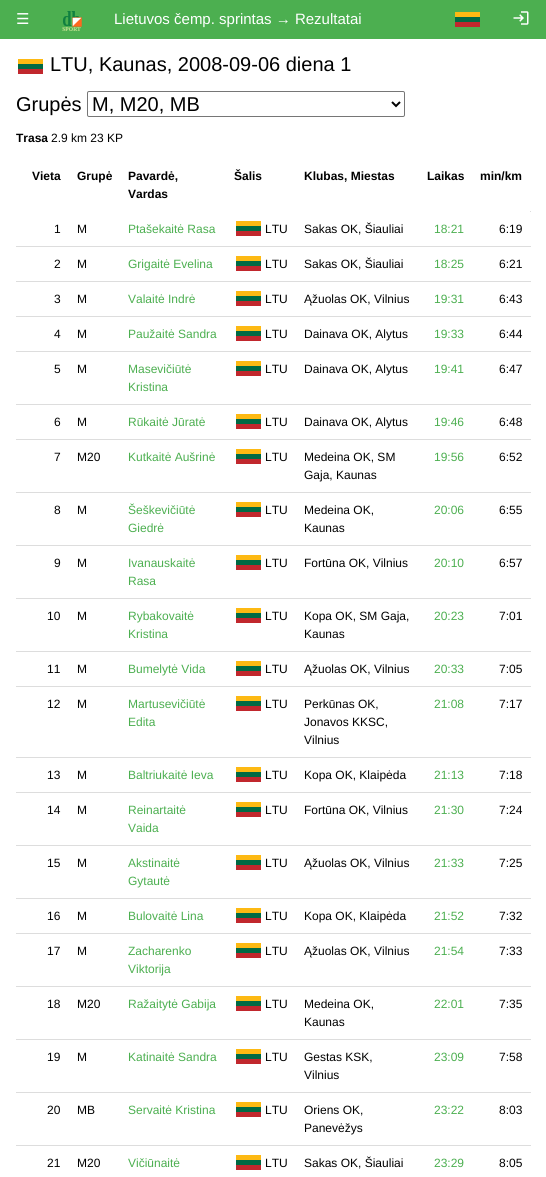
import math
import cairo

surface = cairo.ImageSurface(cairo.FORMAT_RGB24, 546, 1177)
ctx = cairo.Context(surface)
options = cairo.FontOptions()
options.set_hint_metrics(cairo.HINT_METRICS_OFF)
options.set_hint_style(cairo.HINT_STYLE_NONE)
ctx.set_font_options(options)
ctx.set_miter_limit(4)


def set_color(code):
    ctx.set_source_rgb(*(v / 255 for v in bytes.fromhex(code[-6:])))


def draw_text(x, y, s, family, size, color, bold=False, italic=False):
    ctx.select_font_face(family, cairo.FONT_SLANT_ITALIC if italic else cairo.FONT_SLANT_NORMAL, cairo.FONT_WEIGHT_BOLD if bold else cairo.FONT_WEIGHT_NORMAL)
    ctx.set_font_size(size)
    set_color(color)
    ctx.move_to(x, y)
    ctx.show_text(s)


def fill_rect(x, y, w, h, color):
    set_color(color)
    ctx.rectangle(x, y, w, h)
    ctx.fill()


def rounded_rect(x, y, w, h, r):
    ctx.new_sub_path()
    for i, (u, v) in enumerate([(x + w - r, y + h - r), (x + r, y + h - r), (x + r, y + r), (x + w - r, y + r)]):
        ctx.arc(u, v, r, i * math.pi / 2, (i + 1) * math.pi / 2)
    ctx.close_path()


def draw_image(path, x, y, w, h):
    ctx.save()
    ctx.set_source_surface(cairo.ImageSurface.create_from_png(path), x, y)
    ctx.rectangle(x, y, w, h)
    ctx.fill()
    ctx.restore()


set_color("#ffffff")
ctx.paint()
fill_rect(0, 0, 546, 39, "#4caf50")
draw_text(16, 24, "☰", "DejaVu Sans", 15, "#ffffff")
draw_image("assets/img1.png", 62, 11, 20, 20)
draw_text(114, 24, "Lietuvos čemp. sprintas → Rezultatai", "Liberation Sans", 15, "#ffffff")
fill_rect(455, 12, 25, 5, "#fdb913")
fill_rect(455, 17, 25, 5, "#006a44")
fill_rect(455, 22, 25, 5, "#c1272d")
draw_image("assets/img2.png", 513, 11, 16, 14)
fill_rect(18, 59, 25, 5, "#fdb913")
fill_rect(18, 64, 25, 5, "#006a44")
fill_rect(18, 69, 25, 5, "#c1272d")
draw_text(50, 71, "LTU, Kaunas, 2008-09-06 diena 1", "Liberation Sans", 20, "#000000")
draw_text(16, 111, "Grupės", "Liberation Sans", 20, "#000000")
rounded_rect(87.5, 91.5, 317, 25, 1.5)
set_color("#767676")
ctx.set_line_width(1)
ctx.stroke()
ctx.new_path()
ctx.move_to(392, 102)
ctx.line_to(396, 106)
ctx.line_to(400, 102)
set_color("#000000")
ctx.set_line_width(2)
ctx.stroke()
draw_text(92, 111, "M, M20, MB", "Liberation Sans", 20, "#000000")
draw_text(16, 142, "Trasa", "Liberation Sans", 12, "#000000", bold=True)
draw_text(51, 142, "2.9 km 23 KP", "Liberation Sans", 12, "#000000")
fill_rect(530, 211, 1, 1, "#dddddd")
draw_text(32, 180, "Vieta", "Liberation Sans", 12, "#000000", bold=True)
draw_text(77, 180, "Grupė", "Liberation Sans", 12, "#000000", bold=True)
draw_text(128, 180, "Pavardė,", "Liberation Sans", 12, "#000000", bold=True)
draw_text(128, 198, "Vardas", "Liberation Sans", 12, "#000000", bold=True)
draw_text(234, 180, "Šalis", "Liberation Sans", 12, "#000000", bold=True)
draw_text(304, 180, "Klubas, Miestas", "Liberation Sans", 12, "#000000", bold=True)
draw_text(427, 180, "Laikas", "Liberation Sans", 12, "#000000", bold=True)
draw_text(480, 180, "min/km", "Liberation Sans", 12, "#000000", bold=True)
fill_rect(16, 246, 515, 1, "#dddddd")
draw_text(54, 233, "1", "Liberation Sans", 12, "#000000")
draw_text(77, 233, "M", "Liberation Sans", 12, "#000000")
draw_text(128, 233, "Ptašekaitė Rasa", "Liberation Sans", 12, "#4caf50")
fill_rect(236, 221, 25, 5, "#fdb913")
fill_rect(236, 226, 25, 5, "#006a44")
fill_rect(236, 231, 25, 5, "#c1272d")
draw_text(265, 233, "LTU", "Liberation Sans", 12, "#000000")
draw_text(304, 233, "Sakas OK, Šiauliai", "Liberation Sans", 12, "#000000")
draw_text(434, 233, "18:21", "Liberation Sans", 12, "#4caf50")
draw_text(499, 233, "6:19", "Liberation Sans", 12, "#000000")
fill_rect(16, 281, 515, 1, "#dddddd")
draw_text(54, 268, "2", "Liberation Sans", 12, "#000000")
draw_text(77, 268, "M", "Liberation Sans", 12, "#000000")
draw_text(128, 268, "Grigaitė Evelina", "Liberation Sans", 12, "#4caf50")
fill_rect(236, 256, 25, 5, "#fdb913")
fill_rect(236, 261, 25, 5, "#006a44")
fill_rect(236, 266, 25, 5, "#c1272d")
draw_text(265, 268, "LTU", "Liberation Sans", 12, "#000000")
draw_text(304, 268, "Sakas OK, Šiauliai", "Liberation Sans", 12, "#000000")
draw_text(434, 268, "18:25", "Liberation Sans", 12, "#4caf50")
draw_text(499, 268, "6:21", "Liberation Sans", 12, "#000000")
fill_rect(16, 316, 515, 1, "#dddddd")
draw_text(54, 303, "3", "Liberation Sans", 12, "#000000")
draw_text(77, 303, "M", "Liberation Sans", 12, "#000000")
draw_text(128, 303, "Valaitė Indrė", "Liberation Sans", 12, "#4caf50")
fill_rect(236, 291, 25, 5, "#fdb913")
fill_rect(236, 296, 25, 5, "#006a44")
fill_rect(236, 301, 25, 5, "#c1272d")
draw_text(265, 303, "LTU", "Liberation Sans", 12, "#000000")
draw_text(304, 303, "Ąžuolas OK, Vilnius", "Liberation Sans", 12, "#000000")
draw_text(434, 303, "19:31", "Liberation Sans", 12, "#4caf50")
draw_text(499, 303, "6:43", "Liberation Sans", 12, "#000000")
fill_rect(16, 351, 515, 1, "#dddddd")
draw_text(54, 338, "4", "Liberation Sans", 12, "#000000")
draw_text(77, 338, "M", "Liberation Sans", 12, "#000000")
draw_text(128, 338, "Paužaitė Sandra", "Liberation Sans", 12, "#4caf50")
fill_rect(236, 326, 25, 5, "#fdb913")
fill_rect(236, 331, 25, 5, "#006a44")
fill_rect(236, 336, 25, 5, "#c1272d")
draw_text(265, 338, "LTU", "Liberation Sans", 12, "#000000")
draw_text(304, 338, "Dainava OK, Alytus", "Liberation Sans", 12, "#000000")
draw_text(434, 338, "19:33", "Liberation Sans", 12, "#4caf50")
draw_text(499, 338, "6:44", "Liberation Sans", 12, "#000000")
fill_rect(16, 404, 515, 1, "#dddddd")
draw_text(54, 373, "5", "Liberation Sans", 12, "#000000")
draw_text(77, 373, "M", "Liberation Sans", 12, "#000000")
draw_text(128, 373, "Masevičiūtė", "Liberation Sans", 12, "#4caf50")
draw_text(128, 391, "Kristina", "Liberation Sans", 12, "#4caf50")
fill_rect(236, 361, 25, 5, "#fdb913")
fill_rect(236, 366, 25, 5, "#006a44")
fill_rect(236, 371, 25, 5, "#c1272d")
draw_text(265, 373, "LTU", "Liberation Sans", 12, "#000000")
draw_text(304, 373, "Dainava OK, Alytus", "Liberation Sans", 12, "#000000")
draw_text(434, 373, "19:41", "Liberation Sans", 12, "#4caf50")
draw_text(499, 373, "6:47", "Liberation Sans", 12, "#000000")
fill_rect(16, 439, 515, 1, "#dddddd")
draw_text(54, 426, "6", "Liberation Sans", 12, "#000000")
draw_text(77, 426, "M", "Liberation Sans", 12, "#000000")
draw_text(128, 426, "Rūkaitė Jūratė", "Liberation Sans", 12, "#4caf50")
fill_rect(236, 414, 25, 5, "#fdb913")
fill_rect(236, 419, 25, 5, "#006a44")
fill_rect(236, 424, 25, 5, "#c1272d")
draw_text(265, 426, "LTU", "Liberation Sans", 12, "#000000")
draw_text(304, 426, "Dainava OK, Alytus", "Liberation Sans", 12, "#000000")
draw_text(434, 426, "19:46", "Liberation Sans", 12, "#4caf50")
draw_text(499, 426, "6:48", "Liberation Sans", 12, "#000000")
fill_rect(16, 492, 515, 1, "#dddddd")
draw_text(54, 461, "7", "Liberation Sans", 12, "#000000")
draw_text(77, 461, "M20", "Liberation Sans", 12, "#000000")
draw_text(128, 461, "Kutkaitė Aušrinė", "Liberation Sans", 12, "#4caf50")
fill_rect(236, 449, 25, 5, "#fdb913")
fill_rect(236, 454, 25, 5, "#006a44")
fill_rect(236, 459, 25, 5, "#c1272d")
draw_text(265, 461, "LTU", "Liberation Sans", 12, "#000000")
draw_text(304, 461, "Medeina OK, SM", "Liberation Sans", 12, "#000000")
draw_text(304, 479, "Gaja, Kaunas", "Liberation Sans", 12, "#000000")
draw_text(434, 461, "19:56", "Liberation Sans", 12, "#4caf50")
draw_text(499, 461, "6:52", "Liberation Sans", 12, "#000000")
fill_rect(16, 545, 515, 1, "#dddddd")
draw_text(54, 514, "8", "Liberation Sans", 12, "#000000")
draw_text(77, 514, "M", "Liberation Sans", 12, "#000000")
draw_text(128, 514, "Šeškevičiūtė", "Liberation Sans", 12, "#4caf50")
draw_text(128, 532, "Giedrė", "Liberation Sans", 12, "#4caf50")
fill_rect(236, 502, 25, 5, "#fdb913")
fill_rect(236, 507, 25, 5, "#006a44")
fill_rect(236, 512, 25, 5, "#c1272d")
draw_text(265, 514, "LTU", "Liberation Sans", 12, "#000000")
draw_text(304, 514, "Medeina OK,", "Liberation Sans", 12, "#000000")
draw_text(304, 532, "Kaunas", "Liberation Sans", 12, "#000000")
draw_text(434, 514, "20:06", "Liberation Sans", 12, "#4caf50")
draw_text(499, 514, "6:55", "Liberation Sans", 12, "#000000")
fill_rect(16, 598, 515, 1, "#dddddd")
draw_text(54, 567, "9", "Liberation Sans", 12, "#000000")
draw_text(77, 567, "M", "Liberation Sans", 12, "#000000")
draw_text(128, 567, "Ivanauskaitė", "Liberation Sans", 12, "#4caf50")
draw_text(128, 585, "Rasa", "Liberation Sans", 12, "#4caf50")
fill_rect(236, 555, 25, 5, "#fdb913")
fill_rect(236, 560, 25, 5, "#006a44")
fill_rect(236, 565, 25, 5, "#c1272d")
draw_text(265, 567, "LTU", "Liberation Sans", 12, "#000000")
draw_text(304, 567, "Fortūna OK, Vilnius", "Liberation Sans", 12, "#000000")
draw_text(434, 567, "20:10", "Liberation Sans", 12, "#4caf50")
draw_text(499, 567, "6:57", "Liberation Sans", 12, "#000000")
fill_rect(16, 651, 515, 1, "#dddddd")
draw_text(47, 620, "10", "Liberation Sans", 12, "#000000")
draw_text(77, 620, "M", "Liberation Sans", 12, "#000000")
draw_text(128, 620, "Rybakovaitė", "Liberation Sans", 12, "#4caf50")
draw_text(128, 638, "Kristina", "Liberation Sans", 12, "#4caf50")
fill_rect(236, 608, 25, 5, "#fdb913")
fill_rect(236, 613, 25, 5, "#006a44")
fill_rect(236, 618, 25, 5, "#c1272d")
draw_text(265, 620, "LTU", "Liberation Sans", 12, "#000000")
draw_text(304, 620, "Kopa OK, SM Gaja,", "Liberation Sans", 12, "#000000")
draw_text(304, 638, "Kaunas", "Liberation Sans", 12, "#000000")
draw_text(434, 620, "20:23", "Liberation Sans", 12, "#4caf50")
draw_text(499, 620, "7:01", "Liberation Sans", 12, "#000000")
fill_rect(16, 686, 515, 1, "#dddddd")
draw_text(47, 673, "11", "Liberation Sans", 12, "#000000")
draw_text(77, 673, "M", "Liberation Sans", 12, "#000000")
draw_text(128, 673, "Bumelytė Vida", "Liberation Sans", 12, "#4caf50")
fill_rect(236, 661, 25, 5, "#fdb913")
fill_rect(236, 666, 25, 5, "#006a44")
fill_rect(236, 671, 25, 5, "#c1272d")
draw_text(265, 673, "LTU", "Liberation Sans", 12, "#000000")
draw_text(304, 673, "Ąžuolas OK, Vilnius", "Liberation Sans", 12, "#000000")
draw_text(434, 673, "20:33", "Liberation Sans", 12, "#4caf50")
draw_text(499, 673, "7:05", "Liberation Sans", 12, "#000000")
fill_rect(16, 757, 515, 1, "#dddddd")
draw_text(47, 708, "12", "Liberation Sans", 12, "#000000")
draw_text(77, 708, "M", "Liberation Sans", 12, "#000000")
draw_text(128, 708, "Martusevičiūtė", "Liberation Sans", 12, "#4caf50")
draw_text(128, 726, "Edita", "Liberation Sans", 12, "#4caf50")
fill_rect(236, 696, 25, 5, "#fdb913")
fill_rect(236, 701, 25, 5, "#006a44")
fill_rect(236, 706, 25, 5, "#c1272d")
draw_text(265, 708, "LTU", "Liberation Sans", 12, "#000000")
draw_text(304, 708, "Perkūnas OK,", "Liberation Sans", 12, "#000000")
draw_text(304, 726, "Jonavos KKSC,", "Liberation Sans", 12, "#000000")
draw_text(304, 744, "Vilnius", "Liberation Sans", 12, "#000000")
draw_text(434, 708, "21:08", "Liberation Sans", 12, "#4caf50")
draw_text(499, 708, "7:17", "Liberation Sans", 12, "#000000")
fill_rect(16, 792, 515, 1, "#dddddd")
draw_text(47, 779, "13", "Liberation Sans", 12, "#000000")
draw_text(77, 779, "M", "Liberation Sans", 12, "#000000")
draw_text(128, 779, "Baltriukaitė Ieva", "Liberation Sans", 12, "#4caf50")
fill_rect(236, 767, 25, 5, "#fdb913")
fill_rect(236, 772, 25, 5, "#006a44")
fill_rect(236, 777, 25, 5, "#c1272d")
draw_text(265, 779, "LTU", "Liberation Sans", 12, "#000000")
draw_text(304, 779, "Kopa OK, Klaipėda", "Liberation Sans", 12, "#000000")
draw_text(434, 779, "21:13", "Liberation Sans", 12, "#4caf50")
draw_text(499, 779, "7:18", "Liberation Sans", 12, "#000000")
fill_rect(16, 845, 515, 1, "#dddddd")
draw_text(47, 814, "14", "Liberation Sans", 12, "#000000")
draw_text(77, 814, "M", "Liberation Sans", 12, "#000000")
draw_text(128, 814, "Reinartaitė", "Liberation Sans", 12, "#4caf50")
draw_text(128, 832, "Vaida", "Liberation Sans", 12, "#4caf50")
fill_rect(236, 802, 25, 5, "#fdb913")
fill_rect(236, 807, 25, 5, "#006a44")
fill_rect(236, 812, 25, 5, "#c1272d")
draw_text(265, 814, "LTU", "Liberation Sans", 12, "#000000")
draw_text(304, 814, "Fortūna OK, Vilnius", "Liberation Sans", 12, "#000000")
draw_text(434, 814, "21:30", "Liberation Sans", 12, "#4caf50")
draw_text(499, 814, "7:24", "Liberation Sans", 12, "#000000")
fill_rect(16, 898, 515, 1, "#dddddd")
draw_text(47, 867, "15", "Liberation Sans", 12, "#000000")
draw_text(77, 867, "M", "Liberation Sans", 12, "#000000")
draw_text(128, 867, "Akstinaitė", "Liberation Sans", 12, "#4caf50")
draw_text(128, 885, "Gytautė", "Liberation Sans", 12, "#4caf50")
fill_rect(236, 855, 25, 5, "#fdb913")
fill_rect(236, 860, 25, 5, "#006a44")
fill_rect(236, 865, 25, 5, "#c1272d")
draw_text(265, 867, "LTU", "Liberation Sans", 12, "#000000")
draw_text(304, 867, "Ąžuolas OK, Vilnius", "Liberation Sans", 12, "#000000")
draw_text(434, 867, "21:33", "Liberation Sans", 12, "#4caf50")
draw_text(499, 867, "7:25", "Liberation Sans", 12, "#000000")
fill_rect(16, 933, 515, 1, "#dddddd")
draw_text(47, 920, "16", "Liberation Sans", 12, "#000000")
draw_text(77, 920, "M", "Liberation Sans", 12, "#000000")
draw_text(128, 920, "Bulovaitė Lina", "Liberation Sans", 12, "#4caf50")
fill_rect(236, 908, 25, 5, "#fdb913")
fill_rect(236, 913, 25, 5, "#006a44")
fill_rect(236, 918, 25, 5, "#c1272d")
draw_text(265, 920, "LTU", "Liberation Sans", 12, "#000000")
draw_text(304, 920, "Kopa OK, Klaipėda", "Liberation Sans", 12, "#000000")
draw_text(434, 920, "21:52", "Liberation Sans", 12, "#4caf50")
draw_text(499, 920, "7:32", "Liberation Sans", 12, "#000000")
fill_rect(16, 986, 515, 1, "#dddddd")
draw_text(47, 955, "17", "Liberation Sans", 12, "#000000")
draw_text(77, 955, "M", "Liberation Sans", 12, "#000000")
draw_text(128, 955, "Zacharenko", "Liberation Sans", 12, "#4caf50")
draw_text(128, 973, "Viktorija", "Liberation Sans", 12, "#4caf50")
fill_rect(236, 943, 25, 5, "#fdb913")
fill_rect(236, 948, 25, 5, "#006a44")
fill_rect(236, 953, 25, 5, "#c1272d")
draw_text(265, 955, "LTU", "Liberation Sans", 12, "#000000")
draw_text(304, 955, "Ąžuolas OK, Vilnius", "Liberation Sans", 12, "#000000")
draw_text(434, 955, "21:54", "Liberation Sans", 12, "#4caf50")
draw_text(499, 955, "7:33", "Liberation Sans", 12, "#000000")
fill_rect(16, 1039, 515, 1, "#dddddd")
draw_text(47, 1008, "18", "Liberation Sans", 12, "#000000")
draw_text(77, 1008, "M20", "Liberation Sans", 12, "#000000")
draw_text(128, 1008, "Ražaitytė Gabija", "Liberation Sans", 12, "#4caf50")
fill_rect(236, 996, 25, 5, "#fdb913")
fill_rect(236, 1001, 25, 5, "#006a44")
fill_rect(236, 1006, 25, 5, "#c1272d")
draw_text(265, 1008, "LTU", "Liberation Sans", 12, "#000000")
draw_text(304, 1008, "Medeina OK,", "Liberation Sans", 12, "#000000")
draw_text(304, 1026, "Kaunas", "Liberation Sans", 12, "#000000")
draw_text(434, 1008, "22:01", "Liberation Sans", 12, "#4caf50")
draw_text(499, 1008, "7:35", "Liberation Sans", 12, "#000000")
fill_rect(16, 1092, 515, 1, "#dddddd")
draw_text(47, 1061, "19", "Liberation Sans", 12, "#000000")
draw_text(77, 1061, "M", "Liberation Sans", 12, "#000000")
draw_text(128, 1061, "Katinaitė Sandra", "Liberation Sans", 12, "#4caf50")
fill_rect(236, 1049, 25, 5, "#fdb913")
fill_rect(236, 1054, 25, 5, "#006a44")
fill_rect(236, 1059, 25, 5, "#c1272d")
draw_text(265, 1061, "LTU", "Liberation Sans", 12, "#000000")
draw_text(304, 1061, "Gestas KSK,", "Liberation Sans", 12, "#000000")
draw_text(304, 1079, "Vilnius", "Liberation Sans", 12, "#000000")
draw_text(434, 1061, "23:09", "Liberation Sans", 12, "#4caf50")
draw_text(499, 1061, "7:58", "Liberation Sans", 12, "#000000")
fill_rect(16, 1145, 515, 1, "#dddddd")
draw_text(47, 1114, "20", "Liberation Sans", 12, "#000000")
draw_text(77, 1114, "MB", "Liberation Sans", 12, "#000000")
draw_text(128, 1114, "Servaitė Kristina", "Liberation Sans", 12, "#4caf50")
fill_rect(236, 1102, 25, 5, "#fdb913")
fill_rect(236, 1107, 25, 5, "#006a44")
fill_rect(236, 1112, 25, 5, "#c1272d")
draw_text(265, 1114, "LTU", "Liberation Sans", 12, "#000000")
draw_text(304, 1114, "Oriens OK,", "Liberation Sans", 12, "#000000")
draw_text(304, 1132, "Panevėžys", "Liberation Sans", 12, "#000000")
draw_text(434, 1114, "23:22", "Liberation Sans", 12, "#4caf50")
draw_text(499, 1114, "8:03", "Liberation Sans", 12, "#000000")
draw_text(47, 1167, "21", "Liberation Sans", 12, "#000000")
draw_text(77, 1167, "M20", "Liberation Sans", 12, "#000000")
draw_text(128, 1167, "Vičiūnaitė", "Liberation Sans", 12, "#4caf50")
fill_rect(236, 1155, 25, 5, "#fdb913")
fill_rect(236, 1160, 25, 5, "#006a44")
fill_rect(236, 1165, 25, 5, "#c1272d")
draw_text(265, 1167, "LTU", "Liberation Sans", 12, "#000000")
draw_text(304, 1167, "Sakas OK, Šiauliai", "Liberation Sans", 12, "#000000")
draw_text(434, 1167, "23:29", "Liberation Sans", 12, "#4caf50")
draw_text(499, 1167, "8:05", "Liberation Sans", 12, "#000000")
surface.write_to_png("output.png")
